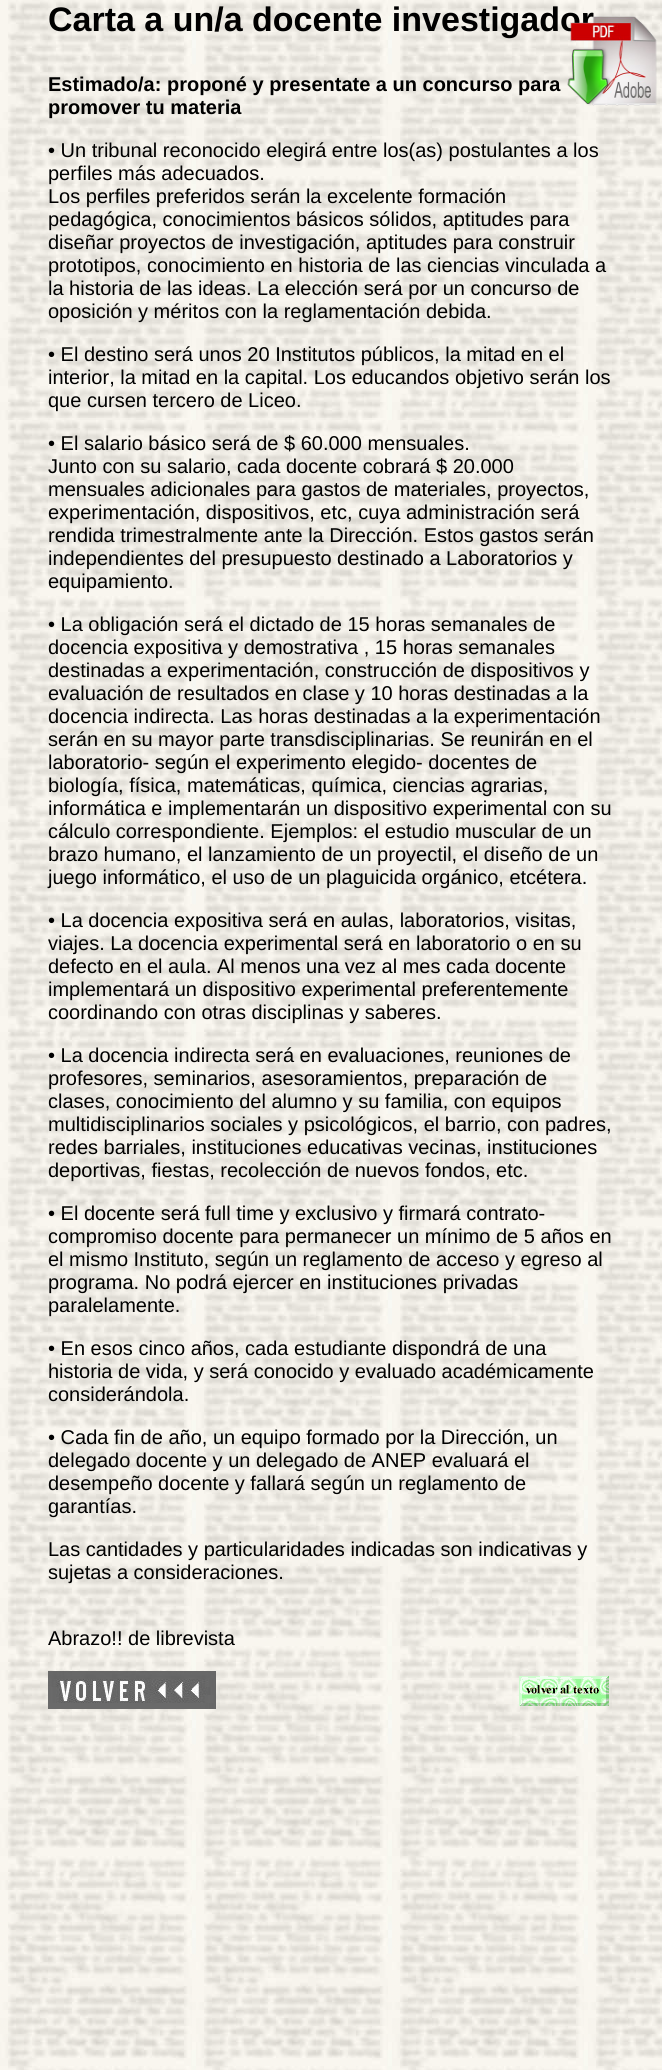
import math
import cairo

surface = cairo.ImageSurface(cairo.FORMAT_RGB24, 662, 2070)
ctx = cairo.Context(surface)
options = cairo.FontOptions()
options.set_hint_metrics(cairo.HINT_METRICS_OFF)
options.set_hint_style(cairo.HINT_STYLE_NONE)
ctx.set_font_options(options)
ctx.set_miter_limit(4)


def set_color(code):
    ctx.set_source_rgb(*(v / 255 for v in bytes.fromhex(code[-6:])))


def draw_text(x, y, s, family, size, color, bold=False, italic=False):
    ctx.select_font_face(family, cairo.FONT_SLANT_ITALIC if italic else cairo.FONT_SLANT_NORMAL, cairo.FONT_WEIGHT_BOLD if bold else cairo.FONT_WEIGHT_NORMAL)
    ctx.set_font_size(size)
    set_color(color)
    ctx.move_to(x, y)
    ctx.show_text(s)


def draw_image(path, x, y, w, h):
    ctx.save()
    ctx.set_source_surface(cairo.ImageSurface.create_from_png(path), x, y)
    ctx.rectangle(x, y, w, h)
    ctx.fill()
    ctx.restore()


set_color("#ffffff")
ctx.paint()
draw_image("assets/img1.png", 0, 0, 662, 2070)
draw_text(48, 31, "Carta a un/a docente investigador", "Liberation Sans", 34, "#000000", bold=True)
draw_image("assets/img2.png", 567, 16, 90, 90)
draw_text(48, 91, "Estimado/a: proponé y presentate a un concurso para", "Liberation Sans", 20, "#000000", bold=True)
draw_text(48, 114, "promover tu materia", "Liberation Sans", 20, "#000000", bold=True)
draw_text(48, 157, "• Un tribunal reconocido elegirá entre los(as) postulantes a los", "Liberation Sans", 20, "#000000")
draw_text(48, 180, "perfiles más adecuados.", "Liberation Sans", 20, "#000000")
draw_text(48, 203, "Los perfiles preferidos serán la excelente formación", "Liberation Sans", 20, "#000000")
draw_text(48, 226, "pedagógica, conocimientos básicos sólidos, aptitudes para", "Liberation Sans", 20, "#000000")
draw_text(48, 249, "diseñar proyectos de investigación, aptitudes para construir", "Liberation Sans", 20, "#000000")
draw_text(48, 272, "prototipos, conocimiento en historia de las ciencias vinculada a", "Liberation Sans", 20, "#000000")
draw_text(48, 295, "la historia de las ideas. La elección será por un concurso de", "Liberation Sans", 20, "#000000")
draw_text(48, 318, "oposición y méritos con la reglamentación debida.", "Liberation Sans", 20, "#000000")
draw_text(48, 361, "• El destino será unos 20 Institutos públicos, la mitad en el", "Liberation Sans", 20, "#000000")
draw_text(48, 384, "interior, la mitad en la capital. Los educandos objetivo serán los", "Liberation Sans", 20, "#000000")
draw_text(48, 407, "que cursen tercero de Liceo.", "Liberation Sans", 20, "#000000")
draw_text(48, 450, "• El salario básico será de $ 60.000 mensuales.", "Liberation Sans", 20, "#000000")
draw_text(48, 473, "Junto con su salario, cada docente cobrará $ 20.000", "Liberation Sans", 20, "#000000")
draw_text(48, 496, "mensuales adicionales para gastos de materiales, proyectos,", "Liberation Sans", 20, "#000000")
draw_text(48, 519, "experimentación, dispositivos, etc, cuya administración será", "Liberation Sans", 20, "#000000")
draw_text(48, 542, "rendida trimestralmente ante la Dirección. Estos gastos serán", "Liberation Sans", 20, "#000000")
draw_text(48, 565, "independientes del presupuesto destinado a Laboratorios y", "Liberation Sans", 20, "#000000")
draw_text(48, 588, "equipamiento.", "Liberation Sans", 20, "#000000")
draw_text(48, 631, "• La obligación será el dictado de 15 horas semanales de", "Liberation Sans", 20, "#000000")
draw_text(48, 654, "docencia expositiva y demostrativa , 15 horas semanales", "Liberation Sans", 20, "#000000")
draw_text(48, 677, "destinadas a experimentación, construcción de dispositivos y", "Liberation Sans", 20, "#000000")
draw_text(48, 700, "evaluación de resultados en clase y 10 horas destinadas a la", "Liberation Sans", 20, "#000000")
draw_text(48, 723, "docencia indirecta. Las horas destinadas a la experimentación", "Liberation Sans", 20, "#000000")
draw_text(48, 746, "serán en su mayor parte transdisciplinarias. Se reunirán en el", "Liberation Sans", 20, "#000000")
draw_text(48, 769, "laboratorio- según el experimento elegido- docentes de", "Liberation Sans", 20, "#000000")
draw_text(48, 792, "biología, física, matemáticas, química, ciencias agrarias,", "Liberation Sans", 20, "#000000")
draw_text(48, 815, "informática e implementarán un dispositivo experimental con su", "Liberation Sans", 20, "#000000")
draw_text(48, 838, "cálculo correspondiente. Ejemplos: el estudio muscular de un", "Liberation Sans", 20, "#000000")
draw_text(48, 861, "brazo humano, el lanzamiento de un proyectil, el diseño de un", "Liberation Sans", 20, "#000000")
draw_text(48, 884, "juego informático, el uso de un plaguicida orgánico, etcétera.", "Liberation Sans", 20, "#000000")
draw_text(48, 927, "• La docencia expositiva será en aulas, laboratorios, visitas,", "Liberation Sans", 20, "#000000")
draw_text(48, 950, "viajes. La docencia experimental será en laboratorio o en su", "Liberation Sans", 20, "#000000")
draw_text(48, 973, "defecto en el aula. Al menos una vez al mes cada docente", "Liberation Sans", 20, "#000000")
draw_text(48, 996, "implementará un dispositivo experimental preferentemente", "Liberation Sans", 20, "#000000")
draw_text(48, 1019, "coordinando con otras disciplinas y saberes.", "Liberation Sans", 20, "#000000")
draw_text(48, 1062, "• La docencia indirecta será en evaluaciones, reuniones de", "Liberation Sans", 20, "#000000")
draw_text(48, 1085, "profesores, seminarios, asesoramientos, preparación de", "Liberation Sans", 20, "#000000")
draw_text(48, 1108, "clases, conocimiento del alumno y su familia, con equipos", "Liberation Sans", 20, "#000000")
draw_text(48, 1131, "multidisciplinarios sociales y psicológicos, el barrio, con padres,", "Liberation Sans", 20, "#000000")
draw_text(48, 1154, "redes barriales, instituciones educativas vecinas, instituciones", "Liberation Sans", 20, "#000000")
draw_text(48, 1177, "deportivas, fiestas, recolección de nuevos fondos, etc.", "Liberation Sans", 20, "#000000")
draw_text(48, 1220, "• El docente será full time y exclusivo y firmará contrato-", "Liberation Sans", 20, "#000000")
draw_text(48, 1243, "compromiso docente para permanecer un mínimo de 5 años en", "Liberation Sans", 20, "#000000")
draw_text(48, 1266, "el mismo Instituto, según un reglamento de acceso y egreso al", "Liberation Sans", 20, "#000000")
draw_text(48, 1289, "programa. No podrá ejercer en instituciones privadas", "Liberation Sans", 20, "#000000")
draw_text(48, 1312, "paralelamente.", "Liberation Sans", 20, "#000000")
draw_text(48, 1355, "• En esos cinco años, cada estudiante dispondrá de una", "Liberation Sans", 20, "#000000")
draw_text(48, 1378, "historia de vida, y será conocido y evaluado académicamente", "Liberation Sans", 20, "#000000")
draw_text(48, 1401, "considerándola.", "Liberation Sans", 20, "#000000")
draw_text(48, 1444, "• Cada fin de año, un equipo formado por la Dirección, un", "Liberation Sans", 20, "#000000")
draw_text(48, 1467, "delegado docente y un delegado de ANEP evaluará el", "Liberation Sans", 20, "#000000")
draw_text(48, 1490, "desempeño docente y fallará según un reglamento de", "Liberation Sans", 20, "#000000")
draw_text(48, 1513, "garantías.", "Liberation Sans", 20, "#000000")
draw_text(48, 1556, "Las cantidades y particularidades indicadas son indicativas y", "Liberation Sans", 20, "#000000")
draw_text(48, 1579, "sujetas a consideraciones.", "Liberation Sans", 20, "#000000")
draw_text(48, 1645, "Abrazo!! de librevista", "Liberation Sans", 20, "#000000")
draw_image("assets/img3.png", 48, 1671, 168, 38)
draw_image("assets/img4.png", 519, 1676, 90, 30)
surface.write_to_png("output.png")
